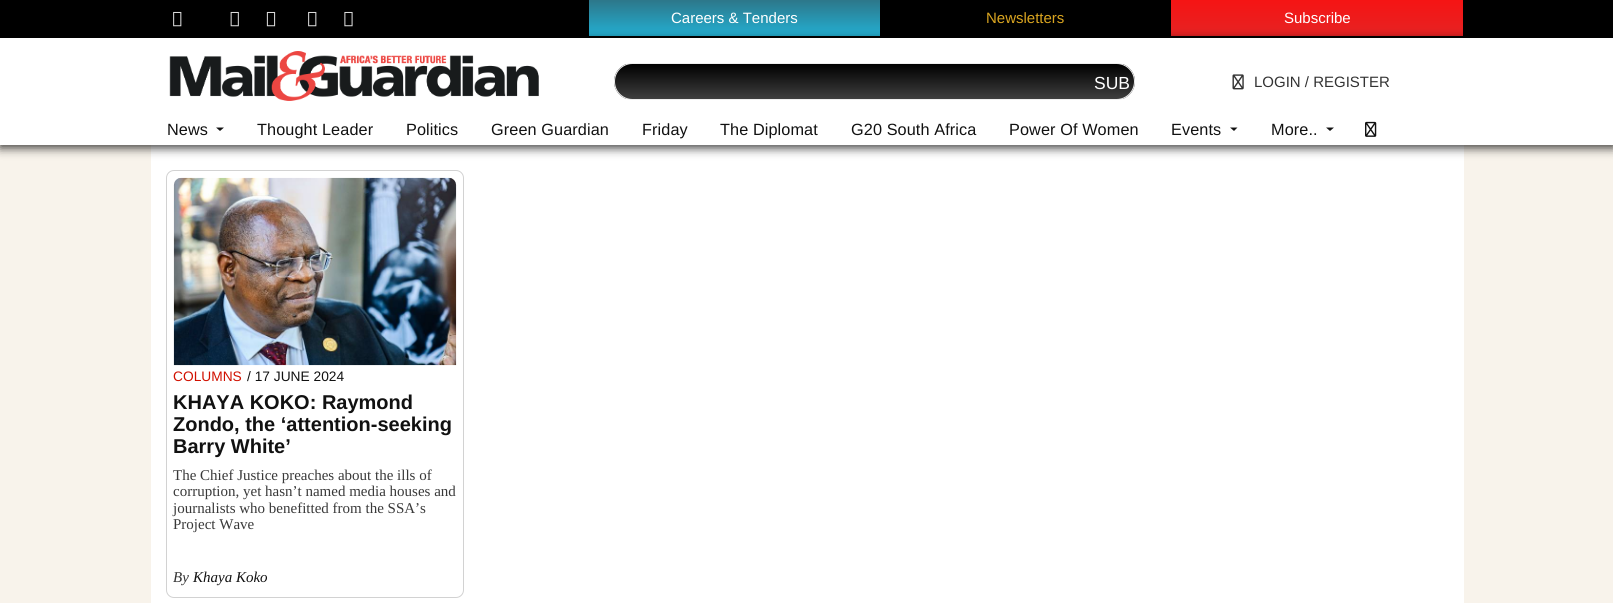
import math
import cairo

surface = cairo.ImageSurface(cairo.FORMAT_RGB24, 1613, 603)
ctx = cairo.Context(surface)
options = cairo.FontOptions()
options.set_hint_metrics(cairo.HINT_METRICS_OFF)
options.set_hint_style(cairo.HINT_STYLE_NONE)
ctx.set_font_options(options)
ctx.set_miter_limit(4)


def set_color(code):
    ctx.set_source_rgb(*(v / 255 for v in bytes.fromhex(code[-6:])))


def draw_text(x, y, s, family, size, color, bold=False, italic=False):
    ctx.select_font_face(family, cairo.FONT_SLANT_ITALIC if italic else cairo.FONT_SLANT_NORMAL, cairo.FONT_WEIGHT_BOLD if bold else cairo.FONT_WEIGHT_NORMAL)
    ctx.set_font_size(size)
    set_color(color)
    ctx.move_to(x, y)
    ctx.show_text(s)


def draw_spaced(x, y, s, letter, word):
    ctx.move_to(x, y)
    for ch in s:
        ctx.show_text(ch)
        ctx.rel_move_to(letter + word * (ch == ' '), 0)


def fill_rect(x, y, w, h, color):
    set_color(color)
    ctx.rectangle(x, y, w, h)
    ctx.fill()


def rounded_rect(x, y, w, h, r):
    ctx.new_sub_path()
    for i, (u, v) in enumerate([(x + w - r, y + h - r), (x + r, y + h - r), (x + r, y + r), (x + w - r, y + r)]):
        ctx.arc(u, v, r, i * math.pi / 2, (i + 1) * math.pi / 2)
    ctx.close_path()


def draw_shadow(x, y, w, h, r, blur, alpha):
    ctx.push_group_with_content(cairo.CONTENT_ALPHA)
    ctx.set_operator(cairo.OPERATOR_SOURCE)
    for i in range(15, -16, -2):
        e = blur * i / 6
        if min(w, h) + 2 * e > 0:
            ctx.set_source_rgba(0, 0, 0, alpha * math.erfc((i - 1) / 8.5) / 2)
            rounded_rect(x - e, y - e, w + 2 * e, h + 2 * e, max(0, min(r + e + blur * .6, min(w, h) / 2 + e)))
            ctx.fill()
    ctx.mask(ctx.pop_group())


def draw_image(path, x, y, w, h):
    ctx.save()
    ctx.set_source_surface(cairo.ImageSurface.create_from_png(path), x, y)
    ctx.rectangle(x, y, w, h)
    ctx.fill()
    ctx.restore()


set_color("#f8f3eb")
ctx.paint()
fill_rect(0, 0, 1613, 38, "#000000")
draw_image("assets/img1.png", 173, 11, 9, 16)
draw_image("assets/img2.png", 230, 11, 9, 16)
draw_image("assets/img3.png", 266, 11, 10, 16)
draw_image("assets/img1.png", 308, 11, 9, 16)
draw_image("assets/img4.png", 344, 11, 9, 16)
gradient = cairo.LinearGradient(734, 36, 734, 0)
gradient.add_color_stop_rgba(0, 0.137, 0.686, 0.824, 1)
gradient.add_color_stop_rgba(1, 0.176, 0.467, 0.541, 1)
ctx.set_source(gradient)
ctx.rectangle(589, 0, 291, 36)
ctx.fill()
draw_text(671, 23, "Careers & Tenders", "Liberation Sans", 15, "#ffffff")
draw_text(986, 23, "Newsletters", "Liberation Sans", 15, "#daa520")
gradient = cairo.LinearGradient(1317, 0, 1317, 36)
gradient.add_color_stop_rgba(0, 0.961, 0.078, 0.078, 1)
gradient.add_color_stop_rgba(1, 0.902, 0.137, 0.137, 1)
ctx.set_source(gradient)
ctx.rectangle(1171, 0, 292, 36)
ctx.fill()
draw_text(1284, 23, "Subscribe", "Liberation Sans", 15, "#ffffff")
fill_rect(151, 145, 1313, 458, "#ffffff")
set_color("#000000")
draw_shadow(0, 40, 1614, 108, 0, 5, 0.75)
fill_rect(0, 38, 1613, 107, "#ffffff")
draw_image("assets/img5.png", 169, 51, 370, 50)
ctx.save()
rounded_rect(614, 63, 521, 37, 18.5)
ctx.clip()
gradient = cairo.LinearGradient(874, 64, 874, 99)
gradient.add_color_stop_rgba(0, 0, 0, 0, 1)
gradient.add_color_stop_rgba(1, 0.247, 0.247, 0.247, 1)
ctx.set_source(gradient)
ctx.rectangle(614, 64, 521, 35)
ctx.fill()
ctx.restore()
rounded_rect(614.5, 63.5, 520, 36, 18)
set_color("#eeeeee")
ctx.set_line_width(1)
ctx.stroke()
draw_text(1094, 89, "SUB", "Liberation Sans", 17.5, "#ffffff")
draw_image("assets/img6.png", 1232, 74, 12, 16)
draw_text(1254, 87, "LOGIN / REGISTER", "Liberation Sans", 15, "#333333")
ctx.set_font_size(16.25)
set_color("#111111")
draw_spaced(167, 135, "News", 0.1, 0)
ctx.new_path()
ctx.move_to(216, 127.5)
ctx.line_to(224, 127.5)
ctx.line_to(220, 131)
ctx.close_path()
ctx.fill()
draw_spaced(257, 135, "Thought Leader", 0.1, 0)
draw_spaced(406, 135, "Politics", 0.1, 0)
draw_spaced(491, 135, "Green Guardian", 0.1, 0)
draw_spaced(642, 135, "Friday", 0.1, 0)
draw_spaced(720, 135, "The Diplomat", 0.1, 0)
draw_spaced(851, 135, "G20 South Africa", 0.1, 0)
draw_spaced(1009, 135, "Power Of Women", 0.1, 0)
draw_spaced(1171, 135, "Events", 0.1, 0)
ctx.new_path()
ctx.move_to(1230, 127.5)
ctx.line_to(1237.5, 127.5)
ctx.line_to(1234, 131)
ctx.close_path()
ctx.fill()
draw_spaced(1271, 135, "More..", 0.1, 0)
ctx.new_path()
ctx.move_to(1326, 127.5)
ctx.line_to(1334, 127.5)
ctx.line_to(1330, 131)
ctx.close_path()
ctx.fill()
draw_image("assets/img7.png", 1365, 121, 12, 16)
rounded_rect(166.5, 170.5, 297, 427, 7.5)
set_color("#d2d2d2")
ctx.stroke()
draw_image("assets/img8.png", 173, 177, 284, 189)
draw_text(173, 381, "COLUMNS", "Liberation Sans", 13.75, "#d11000")
draw_text(247, 381, "/ 17 JUNE 2024", "Liberation Sans", 13.75, "#111111")
draw_text(173, 409, "KHAYA KOKO: Raymond", "Liberation Sans", 20, "#111111", bold=True)
draw_text(173, 431, "Zondo, the ‘attention-seeking", "Liberation Sans", 20, "#111111", bold=True)
draw_text(173, 453, "Barry White’", "Liberation Sans", 20, "#111111", bold=True)
draw_text(173, 480, "The Chief Justice preaches about the ills of", "Liberation Serif", 15, "#393939")
draw_text(173, 496, "corruption, yet hasn’t named media houses and", "Liberation Serif", 15, "#393939")
draw_text(173, 513, "journalists who benefitted from the SSA’s", "Liberation Serif", 15, "#393939")
draw_text(173, 529, "Project Wave", "Liberation Serif", 15, "#393939")
draw_text(173, 582, "By", "Liberation Serif", 15, "#333333", italic=True)
draw_text(193, 582, "Khaya Koko", "Liberation Serif", 15, "#111111", italic=True)
surface.write_to_png("output.png")
